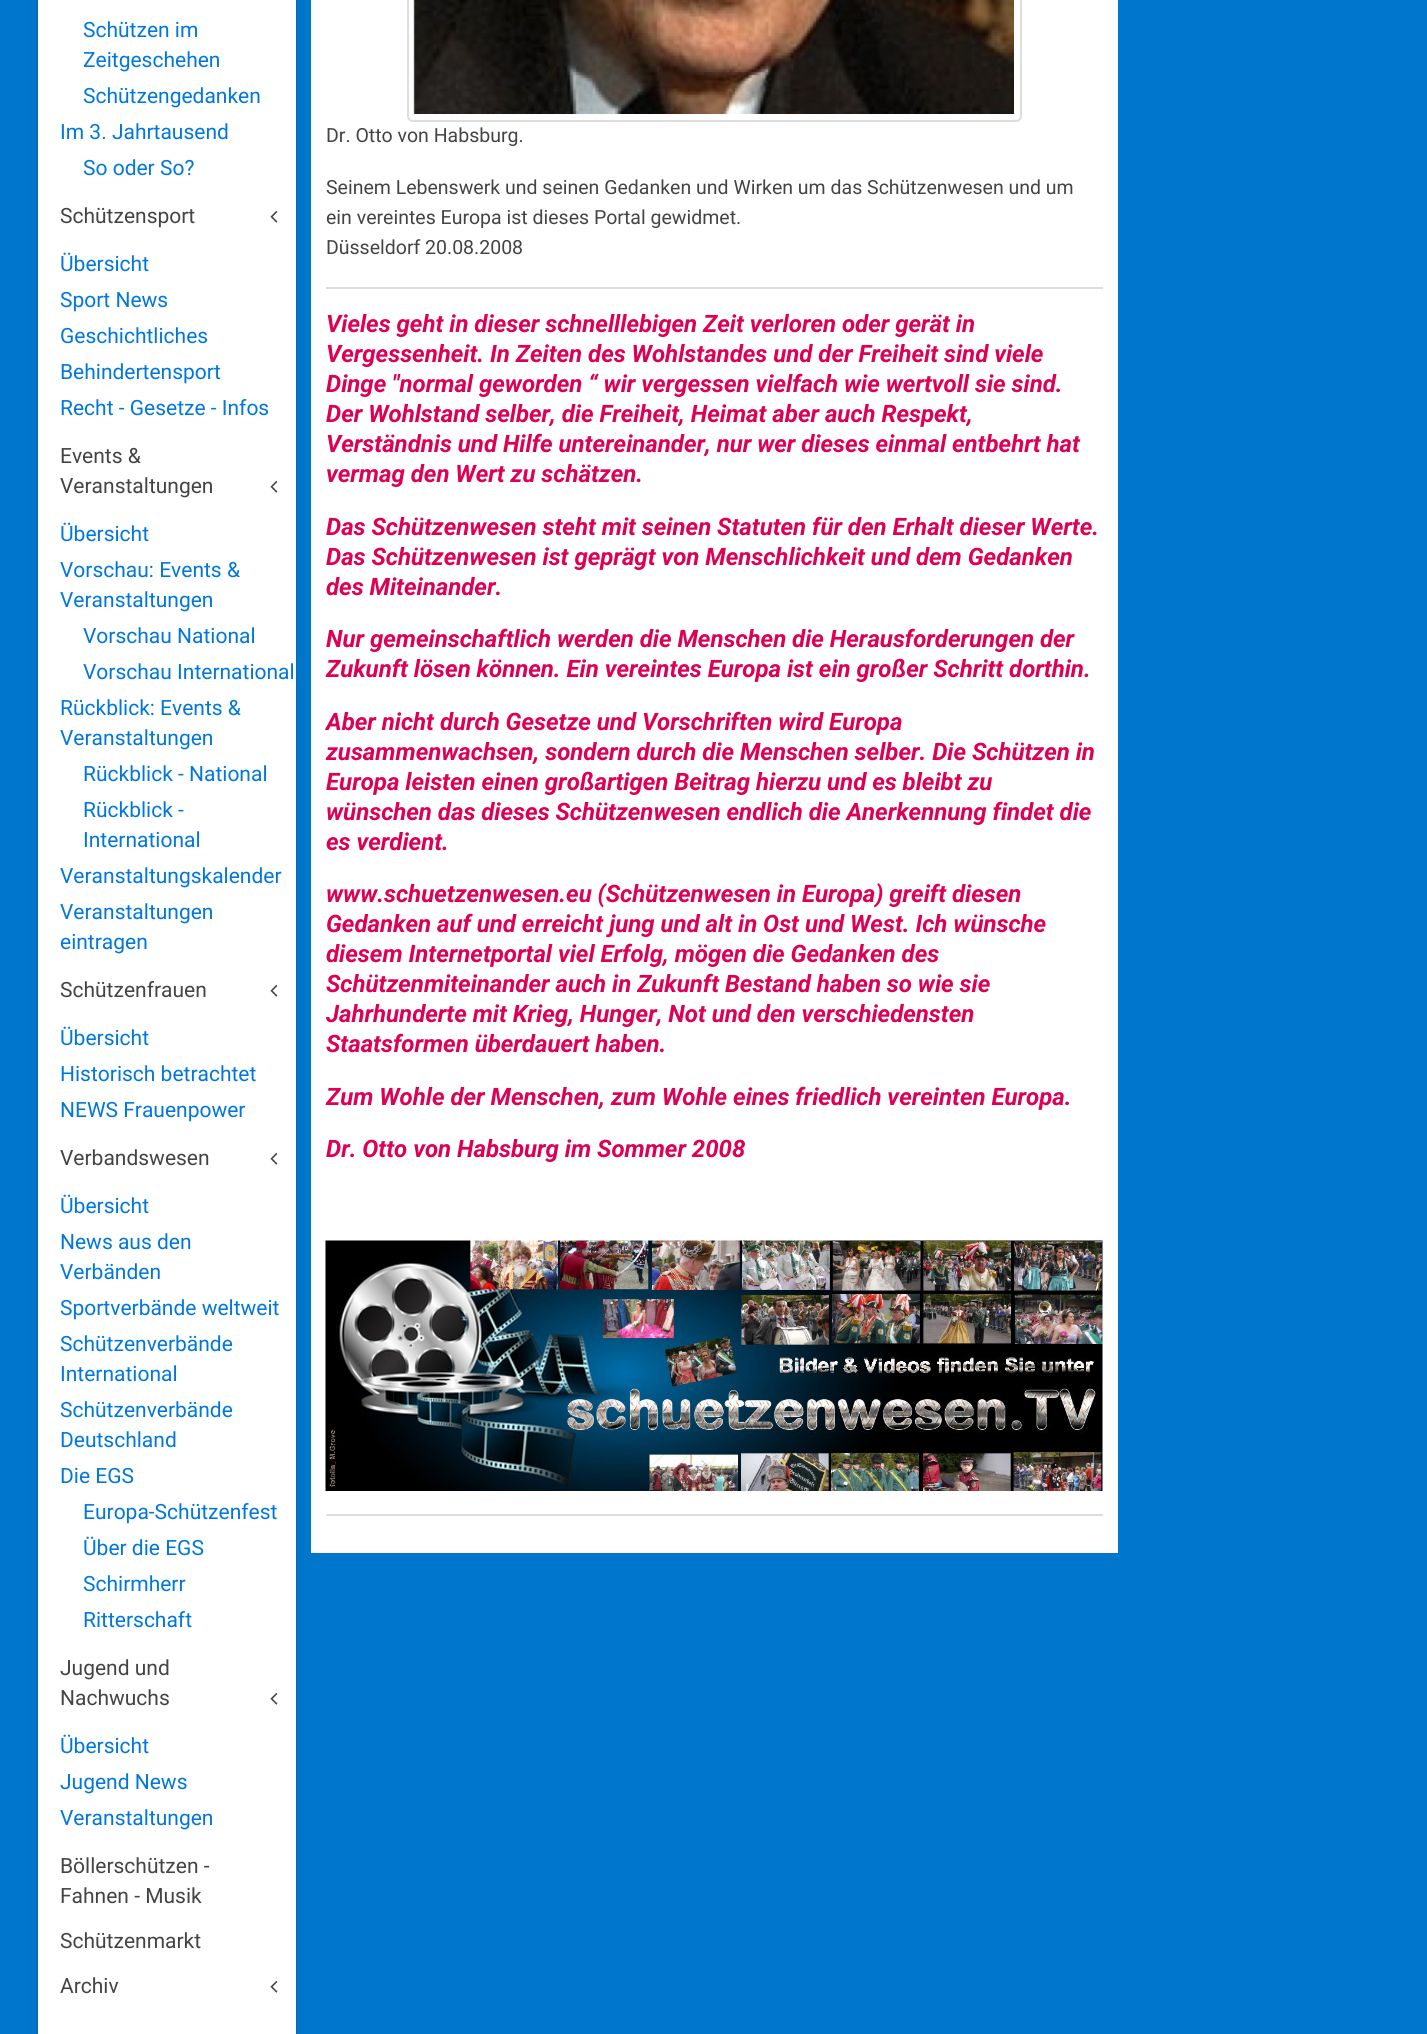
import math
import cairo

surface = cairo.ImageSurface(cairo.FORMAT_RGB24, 1427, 2034)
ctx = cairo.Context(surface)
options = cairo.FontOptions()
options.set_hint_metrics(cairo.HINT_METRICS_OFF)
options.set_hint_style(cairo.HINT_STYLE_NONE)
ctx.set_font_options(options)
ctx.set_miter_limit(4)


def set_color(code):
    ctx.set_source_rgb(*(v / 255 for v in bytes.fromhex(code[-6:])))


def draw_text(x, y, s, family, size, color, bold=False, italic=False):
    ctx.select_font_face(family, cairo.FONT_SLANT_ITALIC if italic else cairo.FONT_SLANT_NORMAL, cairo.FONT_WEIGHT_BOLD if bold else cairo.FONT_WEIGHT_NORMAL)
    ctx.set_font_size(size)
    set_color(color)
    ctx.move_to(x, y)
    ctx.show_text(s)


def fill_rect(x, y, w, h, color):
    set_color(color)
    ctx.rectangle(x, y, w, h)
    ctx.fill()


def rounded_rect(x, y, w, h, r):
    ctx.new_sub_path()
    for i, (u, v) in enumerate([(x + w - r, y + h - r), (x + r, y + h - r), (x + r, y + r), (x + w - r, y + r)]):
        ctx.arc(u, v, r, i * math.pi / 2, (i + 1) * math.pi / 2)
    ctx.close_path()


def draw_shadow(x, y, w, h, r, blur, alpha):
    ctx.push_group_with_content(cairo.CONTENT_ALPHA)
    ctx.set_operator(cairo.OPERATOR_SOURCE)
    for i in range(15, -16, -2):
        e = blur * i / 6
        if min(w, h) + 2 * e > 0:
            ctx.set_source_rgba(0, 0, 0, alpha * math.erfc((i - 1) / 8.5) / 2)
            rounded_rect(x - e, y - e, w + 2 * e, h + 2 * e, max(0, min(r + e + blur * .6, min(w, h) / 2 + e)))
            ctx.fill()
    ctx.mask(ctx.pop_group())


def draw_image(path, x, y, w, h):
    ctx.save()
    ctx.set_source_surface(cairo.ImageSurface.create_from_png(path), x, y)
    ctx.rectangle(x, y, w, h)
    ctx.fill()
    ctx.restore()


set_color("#0077cc")
ctx.paint()
fill_rect(311, 0, 807, 1553, "#ffffff")
set_color("#000000")
draw_shadow(38, -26, 258, 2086, 3, 7.5, 0.06)
ctx.rectangle(37, -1, 259, 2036)
ctx.set_source_rgba(0, 0, 0, 0.06)
ctx.stroke()
fill_rect(38, 0, 258, 2034, "#ffffff")
draw_text(83, 37, "Schützen im", "Roboto", 21, "#0077dd")
draw_text(83, 67, "Zeitgeschehen", "Roboto", 21, "#0077dd")
draw_text(83, 103, "Schützengedanken", "Roboto", 21, "#0077dd")
draw_text(60, 139, "Im 3. Jahrtausend", "Roboto", 21, "#0077dd")
draw_text(83, 175, "So oder So?", "Roboto", 21, "#0077dd")
draw_text(60, 223, "Schützensport", "Roboto", 21, "#444444")
draw_image("assets/img1.png", 270, 211, 8, 12)
draw_text(60, 271, "Übersicht", "Roboto", 21, "#0077dd")
draw_text(60, 307, "Sport News", "Roboto", 21, "#0077dd")
draw_text(60, 343, "Geschichtliches", "Roboto", 21, "#0077dd")
draw_text(60, 379, "Behindertensport", "Roboto", 21, "#0077dd")
draw_text(60, 415, "Recht - Gesetze - Infos", "Roboto", 21, "#0077dd")
draw_text(60, 463, "Events &", "Roboto", 21, "#444444")
draw_text(60, 493, "Veranstaltungen", "Roboto", 21, "#444444")
draw_image("assets/img1.png", 270, 481, 8, 12)
draw_text(60, 541, "Übersicht", "Roboto", 21, "#0077dd")
draw_text(60, 577, "Vorschau: Events &", "Roboto", 21, "#0077dd")
draw_text(60, 607, "Veranstaltungen", "Roboto", 21, "#0077dd")
draw_text(83, 643, "Vorschau National", "Roboto", 21, "#0077dd")
draw_text(83, 679, "Vorschau International", "Roboto", 21, "#0077dd")
draw_text(60, 715, "Rückblick: Events &", "Roboto", 21, "#0077dd")
draw_text(60, 745, "Veranstaltungen", "Roboto", 21, "#0077dd")
draw_text(83, 781, "Rückblick - National", "Roboto", 21, "#0077dd")
draw_text(83, 817, "Rückblick -", "Roboto", 21, "#0077dd")
draw_text(83, 847, "International", "Roboto", 21, "#0077dd")
draw_text(60, 883, "Veranstaltungskalender", "Roboto", 21, "#0077dd")
draw_text(60, 919, "Veranstaltungen", "Roboto", 21, "#0077dd")
draw_text(60, 949, "eintragen", "Roboto", 21, "#0077dd")
draw_text(60, 997, "Schützenfrauen", "Roboto", 21, "#444444")
draw_image("assets/img1.png", 270, 985, 8, 12)
draw_text(60, 1045, "Übersicht", "Roboto", 21, "#0077dd")
draw_text(60, 1081, "Historisch betrachtet", "Roboto", 21, "#0077dd")
draw_text(60, 1117, "NEWS Frauenpower", "Roboto", 21, "#0077dd")
draw_text(60, 1165, "Verbandswesen", "Roboto", 21, "#444444")
draw_image("assets/img1.png", 270, 1153, 8, 12)
draw_text(60, 1213, "Übersicht", "Roboto", 21, "#0077dd")
draw_text(60, 1249, "News aus den", "Roboto", 21, "#0077dd")
draw_text(60, 1279, "Verbänden", "Roboto", 21, "#0077dd")
draw_text(60, 1315, "Sportverbände weltweit", "Roboto", 21, "#0077dd")
draw_text(60, 1351, "Schützenverbände", "Roboto", 21, "#0077dd")
draw_text(60, 1381, "International", "Roboto", 21, "#0077dd")
draw_text(60, 1417, "Schützenverbände", "Roboto", 21, "#0077dd")
draw_text(60, 1447, "Deutschland", "Roboto", 21, "#0077dd")
draw_text(60, 1483, "Die EGS", "Roboto", 21, "#0077dd")
draw_text(83, 1519, "Europa-Schützenfest", "Roboto", 21, "#0077dd")
draw_text(83, 1555, "Über die EGS", "Roboto", 21, "#0077dd")
draw_text(83, 1591, "Schirmherr", "Roboto", 21, "#0077dd")
draw_text(83, 1627, "Ritterschaft", "Roboto", 21, "#0077dd")
draw_text(60, 1675, "Jugend und", "Roboto", 21, "#444444")
draw_text(60, 1705, "Nachwuchs", "Roboto", 21, "#444444")
draw_image("assets/img1.png", 270, 1693, 8, 12)
draw_text(60, 1753, "Übersicht", "Roboto", 21, "#0077dd")
draw_text(60, 1789, "Jugend News", "Roboto", 21, "#0077dd")
draw_text(60, 1825, "Veranstaltungen", "Roboto", 21, "#0077dd")
draw_text(60, 1873, "Böllerschützen -", "Roboto", 21, "#444444")
draw_text(60, 1903, "Fahnen - Musik", "Roboto", 21, "#444444")
draw_text(60, 1948, "Schützenmarkt", "Roboto", 21, "#444444")
draw_text(60, 1993, "Archiv", "Roboto", 21, "#444444")
draw_image("assets/img1.png", 270, 1981, 8, 12)
rounded_rect(408, -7, 613, 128, 5)
set_color("#dddddd")
ctx.stroke()
draw_image("assets/img2.png", 413, 0, 601, 114)
draw_text(326, 142, "Dr. Otto von Habsburg.", "Roboto", 19.5, "#444444")
draw_text(326, 194, "Seinem Lebenswerk und seinen Gedanken und Wirken um das Schützenwesen und um", "Roboto", 19.5, "#444444")
draw_text(326, 224, "ein vereintes Europa ist dieses Portal gewidmet.", "Roboto", 19.5, "#444444")
draw_text(326, 254, "Düsseldorf 20.08.2008", "Roboto", 19.5, "#444444")
fill_rect(326, 287, 777, 2, "#dddddd")
draw_text(326, 332, "Vieles geht in dieser schnelllebigen Zeit verloren oder gerät in", "Roboto", 24, "#dd0055", bold=True, italic=True)
draw_text(326, 362, "Vergessenheit. In Zeiten des Wohlstandes und der Freiheit sind viele", "Roboto", 24, "#dd0055", bold=True, italic=True)
draw_text(326, 392, "Dinge \"normal geworden “ wir vergessen vielfach wie wertvoll sie sind.", "Roboto", 24, "#dd0055", bold=True, italic=True)
draw_text(326, 422, "Der Wohlstand selber, die Freiheit, Heimat aber auch Respekt,", "Roboto", 24, "#dd0055", bold=True, italic=True)
draw_text(326, 452, "Verständnis und Hilfe untereinander, nur wer dieses einmal entbehrt hat", "Roboto", 24, "#dd0055", bold=True, italic=True)
draw_text(326, 482, "vermag den Wert zu schätzen.", "Roboto", 24, "#dd0055", bold=True, italic=True)
draw_text(326, 535, "Das Schützenwesen steht mit seinen Statuten für den Erhalt dieser Werte.", "Roboto", 24, "#dd0055", bold=True, italic=True)
draw_text(326, 565, "Das Schützenwesen ist geprägt von Menschlichkeit und dem Gedanken", "Roboto", 24, "#dd0055", bold=True, italic=True)
draw_text(326, 595, "des Miteinander.", "Roboto", 24, "#dd0055", bold=True, italic=True)
draw_text(326, 647, "Nur gemeinschaftlich werden die Menschen die Herausforderungen der", "Roboto", 24, "#dd0055", bold=True, italic=True)
draw_text(326, 677, "Zukunft lösen können. Ein vereintes Europa ist ein großer Schritt dorthin.", "Roboto", 24, "#dd0055", bold=True, italic=True)
draw_text(326, 730, "Aber nicht durch Gesetze und Vorschriften wird Europa", "Roboto", 24, "#dd0055", bold=True, italic=True)
draw_text(326, 760, "zusammenwachsen, sondern durch die Menschen selber. Die Schützen in", "Roboto", 24, "#dd0055", bold=True, italic=True)
draw_text(326, 790, "Europa leisten einen großartigen Beitrag hierzu und es bleibt zu", "Roboto", 24, "#dd0055", bold=True, italic=True)
draw_text(326, 820, "wünschen das dieses Schützenwesen endlich die Anerkennung findet die", "Roboto", 24, "#dd0055", bold=True, italic=True)
draw_text(326, 850, "es verdient.", "Roboto", 24, "#dd0055", bold=True, italic=True)
draw_text(326, 902, "www.schuetzenwesen.eu (Schützenwesen in Europa) greift diesen", "Roboto", 24, "#dd0055", bold=True, italic=True)
draw_text(326, 932, "Gedanken auf und erreicht jung und alt in Ost und West. Ich wünsche", "Roboto", 24, "#dd0055", bold=True, italic=True)
draw_text(326, 962, "diesem Internetportal viel Erfolg, mögen die Gedanken des", "Roboto", 24, "#dd0055", bold=True, italic=True)
draw_text(326, 992, "Schützenmiteinander auch in Zukunft Bestand haben so wie sie", "Roboto", 24, "#dd0055", bold=True, italic=True)
draw_text(326, 1022, "Jahrhunderte mit Krieg, Hunger, Not und den verschiedensten", "Roboto", 24, "#dd0055", bold=True, italic=True)
draw_text(326, 1052, "Staatsformen überdauert haben.", "Roboto", 24, "#dd0055", bold=True, italic=True)
draw_text(326, 1105, "Zum Wohle der Menschen, zum Wohle eines friedlich vereinten Europa.", "Roboto", 24, "#dd0055", bold=True, italic=True)
draw_text(326, 1157, "Dr. Otto von Habsburg im Sommer 2008", "Roboto", 24, "#dd0055", bold=True, italic=True)
draw_image("assets/img3.png", 325, 1240, 778, 251)
fill_rect(326, 1514, 777, 2, "#dddddd")
surface.write_to_png("output.png")
